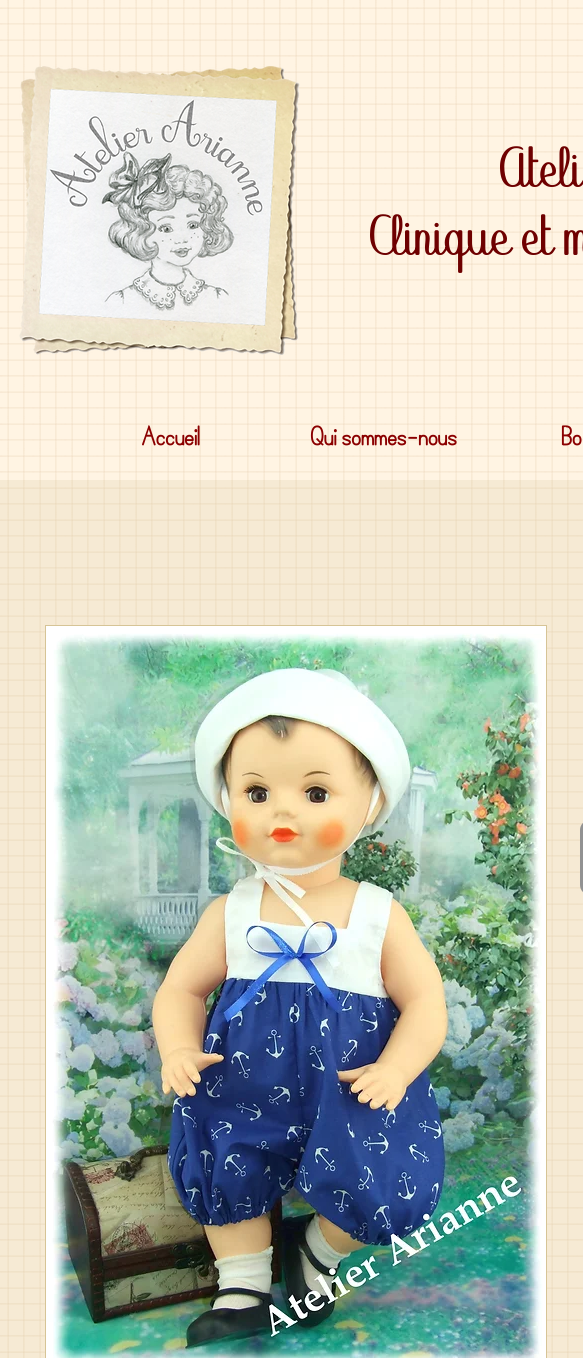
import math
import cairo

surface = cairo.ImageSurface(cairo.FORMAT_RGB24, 583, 1358)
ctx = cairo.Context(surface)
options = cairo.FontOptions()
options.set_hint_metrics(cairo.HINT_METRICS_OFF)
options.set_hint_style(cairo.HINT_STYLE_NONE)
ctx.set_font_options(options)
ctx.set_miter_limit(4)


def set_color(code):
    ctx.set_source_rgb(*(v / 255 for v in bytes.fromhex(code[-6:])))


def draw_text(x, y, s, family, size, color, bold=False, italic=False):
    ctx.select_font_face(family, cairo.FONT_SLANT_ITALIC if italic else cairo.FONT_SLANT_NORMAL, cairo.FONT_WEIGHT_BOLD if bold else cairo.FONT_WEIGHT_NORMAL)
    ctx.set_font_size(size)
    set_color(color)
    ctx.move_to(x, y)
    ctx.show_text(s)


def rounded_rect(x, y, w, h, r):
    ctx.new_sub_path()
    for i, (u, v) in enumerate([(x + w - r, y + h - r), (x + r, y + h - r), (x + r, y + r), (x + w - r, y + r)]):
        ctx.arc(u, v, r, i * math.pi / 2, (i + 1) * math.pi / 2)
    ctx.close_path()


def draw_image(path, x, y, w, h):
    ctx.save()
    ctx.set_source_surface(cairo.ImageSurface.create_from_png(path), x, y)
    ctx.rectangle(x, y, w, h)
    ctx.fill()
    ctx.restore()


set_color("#fff4e3")
ctx.paint()
draw_image("assets/img1.png", 0, 0, 583, 1358)
draw_image("assets/img2.png", 19, 66, 281, 289)
draw_text(500, 187, "Ateli", "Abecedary", 53, "#6e0000")
draw_text(370, 255, "Clinique et m", "Abecedary", 53, "#6e0000")
draw_text(141, 445, "Accueil", "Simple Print", 37, "#8b0000", bold=True)
draw_text(310, 445, "Qui sommes-nous", "Simple Print", 37, "#8b0000", bold=True)
draw_text(561, 445, "Bo", "Simple Print", 37, "#8b0000", bold=True)
ctx.set_source_rgba(0.839, 0.769, 0.588, 0.2)
ctx.rectangle(0, 480, 583, 878)
ctx.fill()
ctx.rectangle(45.5, 625.5, 501, 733)
set_color("#d6c496")
ctx.set_line_width(1)
ctx.stroke()
draw_image("assets/img3.png", 46, 626, 500, 732)
set_color("#929292")
rounded_rect(580, 820, 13, 75, 10)
ctx.fill()
surface.write_to_png("output.png")
